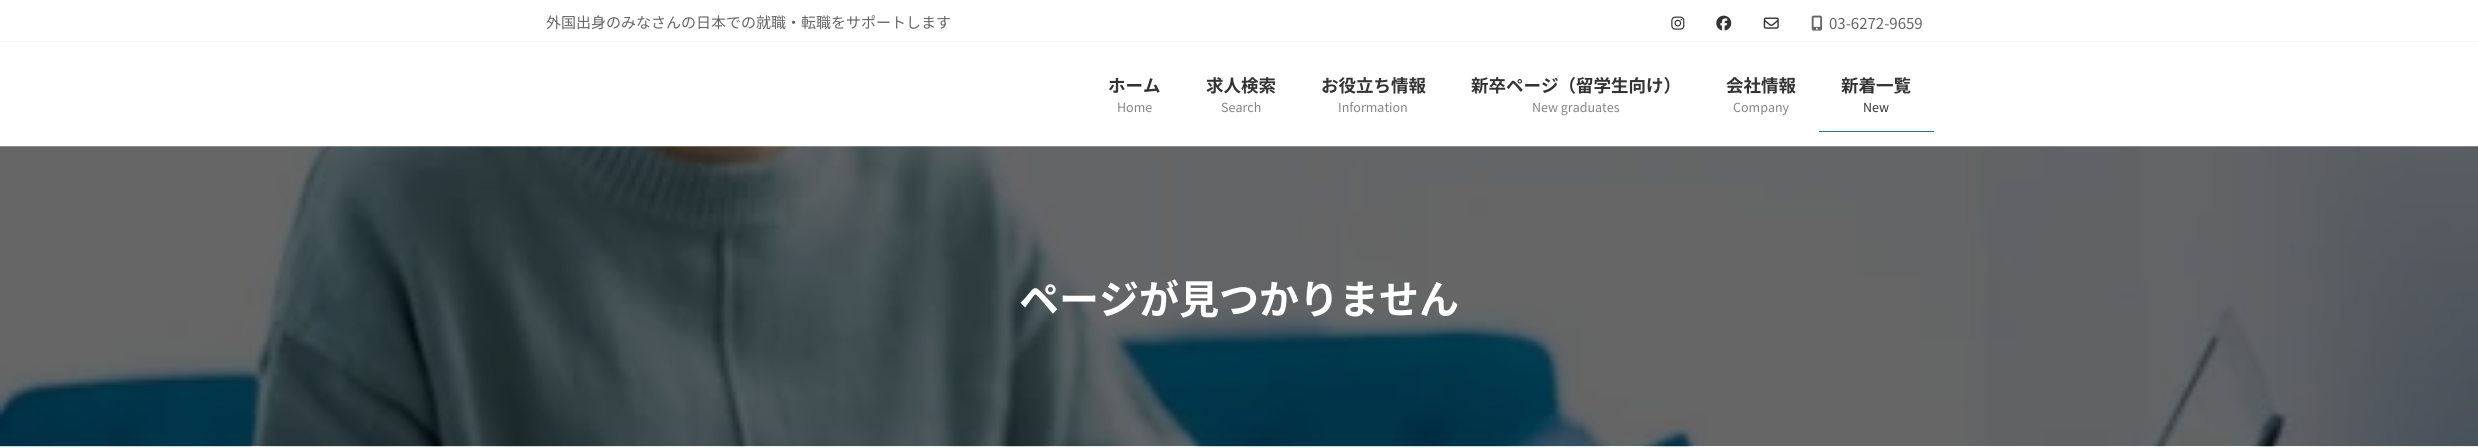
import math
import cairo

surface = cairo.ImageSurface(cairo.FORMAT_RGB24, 2478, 448)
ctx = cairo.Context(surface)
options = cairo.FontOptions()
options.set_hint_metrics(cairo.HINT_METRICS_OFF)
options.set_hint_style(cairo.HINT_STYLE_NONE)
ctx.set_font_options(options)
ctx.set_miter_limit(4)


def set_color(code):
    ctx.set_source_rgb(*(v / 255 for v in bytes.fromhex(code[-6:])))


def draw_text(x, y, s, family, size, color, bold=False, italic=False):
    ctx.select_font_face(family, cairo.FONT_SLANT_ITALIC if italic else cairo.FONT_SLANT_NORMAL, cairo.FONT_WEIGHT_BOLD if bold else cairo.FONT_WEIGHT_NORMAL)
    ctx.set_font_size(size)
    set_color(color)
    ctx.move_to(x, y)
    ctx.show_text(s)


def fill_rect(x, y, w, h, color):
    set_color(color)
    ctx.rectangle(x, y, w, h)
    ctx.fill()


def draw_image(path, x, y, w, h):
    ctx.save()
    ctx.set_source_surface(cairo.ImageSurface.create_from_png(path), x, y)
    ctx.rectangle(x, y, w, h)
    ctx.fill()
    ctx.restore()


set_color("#ffffff")
ctx.paint()
fill_rect(0, 41, 2478, 1, "#f5f5f5")
draw_text(546, 28, "外国出身のみなさんの日本での就職・転職をサポートします", "Noto Sans JP", 15, "#666666")
draw_image("assets/img1.png", 1671, 16, 14, 14)
draw_image("assets/img2.png", 1716, 15, 16, 16)
draw_image("assets/img3.png", 1763, 17, 16, 12)
draw_image("assets/img4.png", 1811, 15, 12, 16)
draw_text(1829, 29, "03-6272-9659", "Noto Sans JP", 15, "#666666")
draw_text(1108, 92, "ホーム", "Noto Sans JP", 17.5, "#333333", bold=True)
draw_text(1117, 112, "Home", "Noto Sans JP", 12.5, "#858585")
draw_text(1206, 92, "求人検索", "Noto Sans JP", 17.5, "#333333", bold=True)
draw_text(1221, 112, "Search", "Noto Sans JP", 12.5, "#858585")
draw_text(1321, 92, "お役立ち情報", "Noto Sans JP", 17.5, "#333333", bold=True)
draw_text(1338, 112, "Information", "Noto Sans JP", 12.5, "#858585")
draw_text(1471, 92, "新卒ページ（留学生向け）", "Noto Sans JP", 17.5, "#333333", bold=True)
draw_text(1532, 112, "New graduates", "Noto Sans JP", 12.5, "#858585")
draw_text(1726, 92, "会社情報", "Noto Sans JP", 17.5, "#333333", bold=True)
draw_text(1733, 112, "Company", "Noto Sans JP", 12.5, "#858585")
draw_text(1841, 92, "新着一覧", "Noto Sans JP", 17.5, "#333333", bold=True)
draw_text(1863, 112, "New", "Noto Sans JP", 12.5, "#333333")
fill_rect(1819, 131, 115, 1, "#1e73be")
draw_image("assets/img5.png", 0, 146, 2478, 301)
draw_text(1019, 314, "ページが見つかりません", "Noto Sans JP", 40, "#ffffff", bold=True)
surface.write_to_png("output.png")
